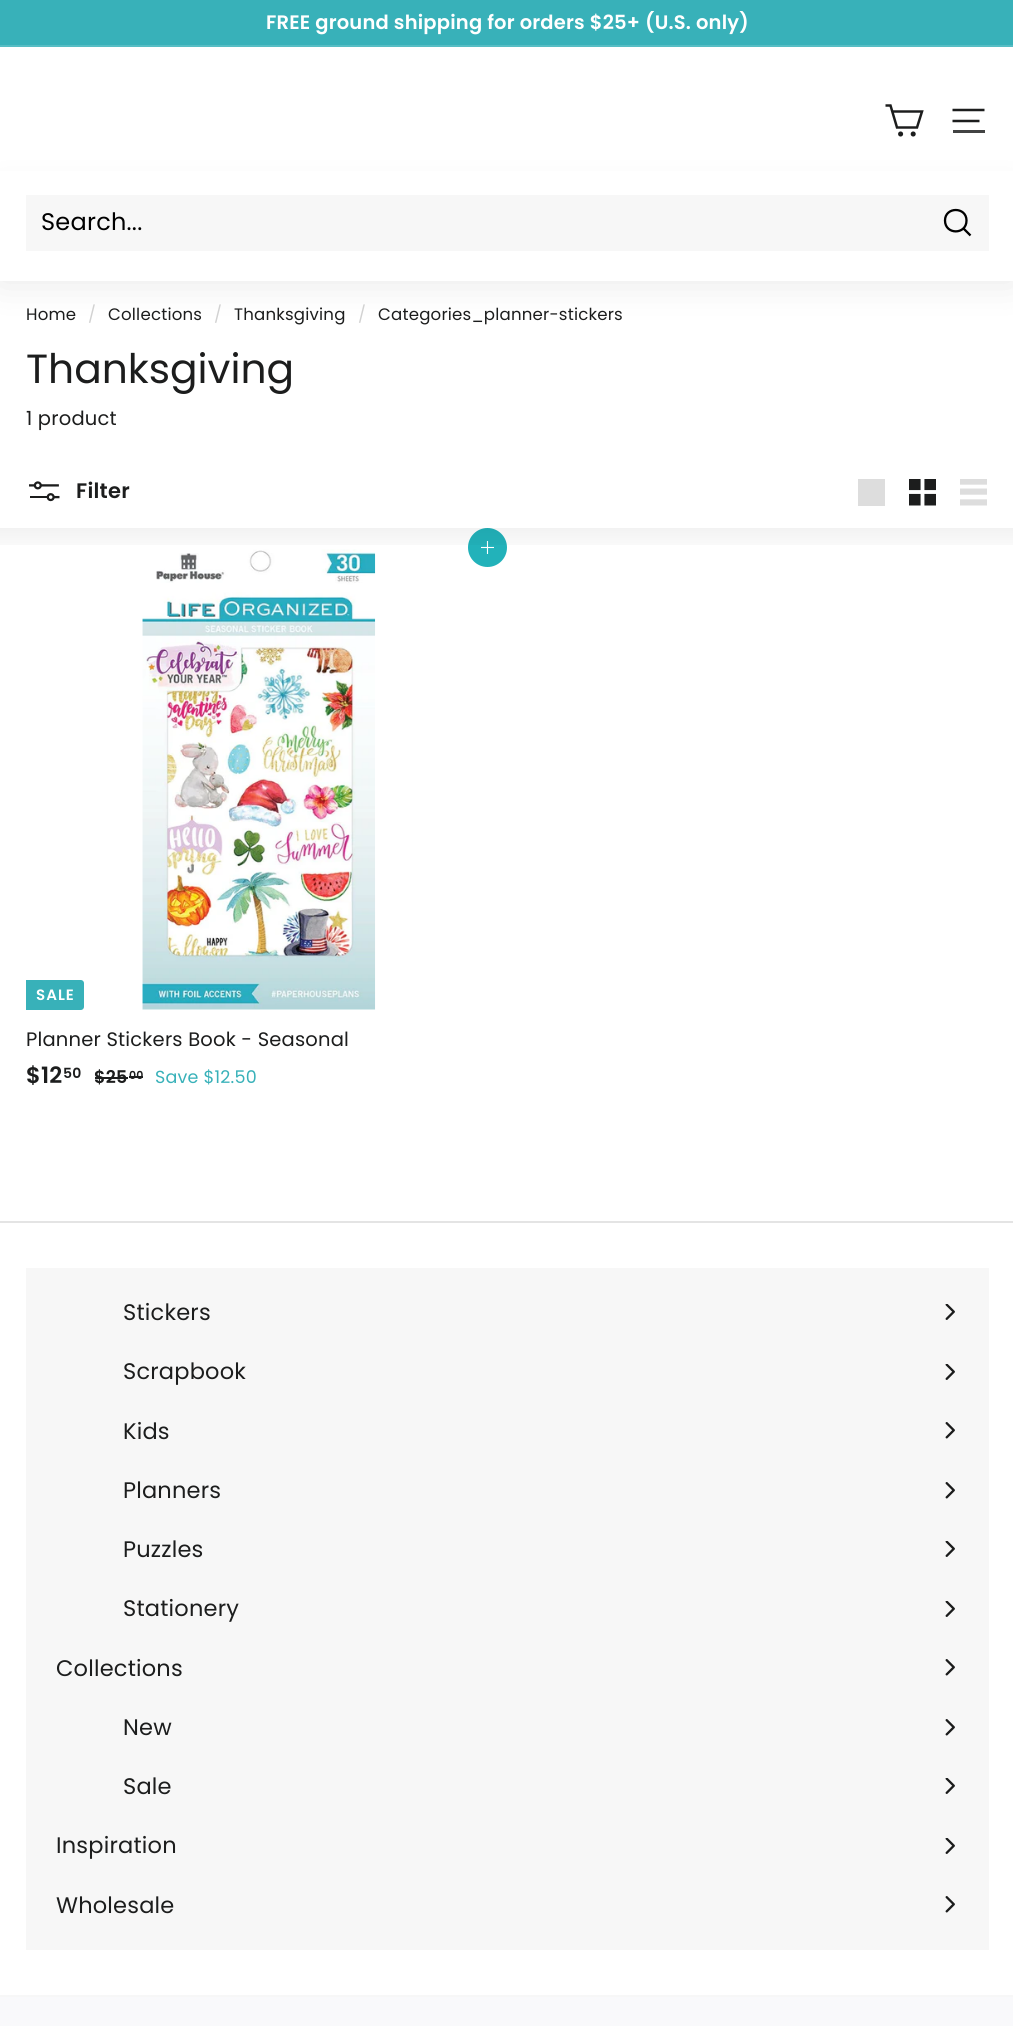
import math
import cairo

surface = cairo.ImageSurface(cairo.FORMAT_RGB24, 1013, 2026)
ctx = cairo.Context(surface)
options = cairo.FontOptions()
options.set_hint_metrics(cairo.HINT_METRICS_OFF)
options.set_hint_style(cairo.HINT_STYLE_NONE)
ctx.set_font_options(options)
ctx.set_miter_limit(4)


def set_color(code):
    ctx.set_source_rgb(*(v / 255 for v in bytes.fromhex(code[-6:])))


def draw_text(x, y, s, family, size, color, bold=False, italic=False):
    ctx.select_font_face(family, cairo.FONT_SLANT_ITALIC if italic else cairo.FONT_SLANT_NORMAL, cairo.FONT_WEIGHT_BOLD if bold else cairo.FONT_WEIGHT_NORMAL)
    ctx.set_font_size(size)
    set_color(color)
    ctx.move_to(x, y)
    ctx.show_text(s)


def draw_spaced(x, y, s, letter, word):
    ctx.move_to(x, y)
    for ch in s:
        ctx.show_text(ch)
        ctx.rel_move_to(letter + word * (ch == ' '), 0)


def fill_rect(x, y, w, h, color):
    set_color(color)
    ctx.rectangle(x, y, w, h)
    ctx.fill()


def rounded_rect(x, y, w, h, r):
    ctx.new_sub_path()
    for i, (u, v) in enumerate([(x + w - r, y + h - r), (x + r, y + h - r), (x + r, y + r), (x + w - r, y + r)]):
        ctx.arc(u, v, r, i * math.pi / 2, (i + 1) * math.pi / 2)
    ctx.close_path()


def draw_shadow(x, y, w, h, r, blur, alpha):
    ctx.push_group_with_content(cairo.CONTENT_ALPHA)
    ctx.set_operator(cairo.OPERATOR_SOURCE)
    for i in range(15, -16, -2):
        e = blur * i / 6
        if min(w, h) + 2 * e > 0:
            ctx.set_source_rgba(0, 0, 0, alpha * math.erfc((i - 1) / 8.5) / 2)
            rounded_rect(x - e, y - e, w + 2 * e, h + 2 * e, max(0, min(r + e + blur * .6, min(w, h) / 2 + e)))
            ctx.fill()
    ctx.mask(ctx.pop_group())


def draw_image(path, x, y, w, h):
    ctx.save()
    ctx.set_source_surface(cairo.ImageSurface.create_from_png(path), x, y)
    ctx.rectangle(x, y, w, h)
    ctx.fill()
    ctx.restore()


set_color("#ffffff")
ctx.paint()
fill_rect(26, 1268, 963, 682, "#f7f7f7")
fill_rect(0, 0, 1013, 45, "#38b1b9")
ctx.select_font_face("Poppins SemiBold")
ctx.set_font_size(19.5)
set_color("#ffffff")
draw_spaced(266, 29, "FREE ground shipping for orders $25+ (U.S. only)", 0.2, 0)
fill_rect(0, 45, 1013, 2, "#56bdc4")
ctx.new_path()
ctx.move_to(892.5, 111.5)
ctx.line_to(922, 111.5)
ctx.line_to(917, 127.5)
ctx.line_to(897, 127.5)
ctx.line_to(890.5, 105.5)
ctx.line_to(885.5, 105.5)
set_color("#1c1d1d")
ctx.set_line_width(2.5)
ctx.stroke()
ctx.arc(900.6, 134, 1.3, 0, 2 * math.pi)
ctx.stroke()
ctx.arc(913.2, 134, 1.3, 0, 2 * math.pi)
ctx.stroke()
ctx.new_path()
ctx.move_to(952.5, 110)
ctx.line_to(984.5, 110)
ctx.move_to(952.5, 121)
ctx.line_to(979.5, 121)
ctx.stroke()
fill_rect(953, 130, 32, 3, "#424343")
set_color("#000000")
draw_shadow(0, 195, 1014, 86, 0, 19, 0.1)
fill_rect(0, 171, 1013, 110, "#ffffff")
fill_rect(26, 195, 963, 56, "#f7f7f7")
ctx.select_font_face("Poppins")
ctx.set_font_size(24)
set_color("#000000")
draw_spaced(41, 230, "Search...", 0.25, 0)
ctx.new_path()
ctx.move_to(966.5, 220.5)
ctx.curve_to(966.5, 235, 945, 235, 945, 220.5)
ctx.curve_to(945, 206.5, 966.5, 206.5, 966.5, 220.5)
ctx.close_path()
ctx.move_to(970.5, 235.5)
ctx.line_to(963.5, 228.5)
ctx.set_line_width(2.3)
ctx.stroke()
ctx.set_font_size(16.6)
set_color("#1c1d1d")
draw_spaced(26, 320, "Home", 0.2, 0)
set_color("#d2d2d2")
draw_spaced(88, 320, "/", 0.2, 0)
set_color("#1c1d1d")
draw_spaced(108, 320, "Collections", 0.2, 0)
set_color("#d2d2d2")
draw_spaced(214, 320, "/", 0.2, 0)
set_color("#1c1d1d")
draw_spaced(234, 320, "Thanksgiving", 0.2, 0)
set_color("#d2d2d2")
draw_spaced(358, 320, "/", 0.2, 0)
set_color("#1c1d1d")
draw_spaced(378, 320, "Categories_planner-stickers", 0.2, 0)
draw_text(26, 383, "Thanksgiving", "Poppins", 40.75, "#1c1d1d")
ctx.set_font_size(19.5)
draw_spaced(26, 425, "1 product", 0.2, 0)
draw_image("assets/img1.png", 29, 481, 31, 21)
ctx.select_font_face("Poppins SemiBold")
ctx.set_font_size(21)
draw_spaced(76, 498, "Filter", 0.25, 0)
fill_rect(858, 479, 27, 27, "#dddddd")
draw_image("assets/img2.png", 909, 479, 27, 27)
draw_image("assets/img3.png", 960, 479, 27, 27)
set_color("#22b2ba")
ctx.arc(487.5, 547.5, 19.5, 0, 2 * math.pi)
ctx.fill()
ctx.new_path()
ctx.move_to(487.5, 541)
ctx.line_to(487.5, 554)
ctx.move_to(494, 547.5)
ctx.line_to(481, 547.5)
set_color("#ffffff")
ctx.set_line_width(1.1)
ctx.stroke()
gradient = cairo.LinearGradient(507, 528, 507, 558)
gradient.add_color_stop_rgba(0, 0, 0, 0, 0.05)
gradient.add_color_stop_rgba(1, 0, 0, 0, 0)
ctx.set_source(gradient)
ctx.rectangle(0, 528, 1013, 17)
ctx.fill()
set_color("#38b1b9")
ctx.new_path()
ctx.move_to(26, 980)
ctx.line_to(81, 980)
ctx.curve_to(82.5, 980, 84, 981.5, 84, 983)
ctx.line_to(84, 1007)
ctx.curve_to(84, 1008.5, 82.5, 1010, 81, 1010)
ctx.line_to(26, 1010)
ctx.close_path()
ctx.fill()
ctx.set_font_size(15)
set_color("#ffffff")
draw_spaced(36, 1000, "SALE", 1, 0)
draw_image("assets/img4.png", 142, 549, 234, 461)
ctx.select_font_face("Poppins")
ctx.set_font_size(19.5)
set_color("#1c1d1d")
draw_spaced(26, 1046, "Planner Stickers Book - Seasonal", 0.2, 0)
ctx.select_font_face("Poppins SemiBold")
ctx.set_font_size(22.5)
draw_spaced(26, 1083, "$12", 0.2, 0)
ctx.set_font_size(14)
draw_spaced(63, 1078, "50", 0.2, 0)
ctx.set_font_size(17.5)
draw_spaced(94, 1083, "$25", 0.2, 0)
fill_rect(95, 1077, 33, 2, "#1c1d1d")
fill_rect(129, 1076, 14, 2, "#1c1d1d")
ctx.set_font_size(11)
draw_spaced(129, 1079, "00", 0.2, 0)
ctx.select_font_face("Poppins")
ctx.set_font_size(17.5)
set_color("#38b1b9")
draw_spaced(155, 1083, "Save $12.50", 0.2, 0)
fill_rect(0, 1221, 1013, 2, "#e4e4e4")
ctx.set_font_size(22.5)
set_color("#1c1d1d")
draw_spaced(123, 1320, "Stickers", 0.2, 0)
draw_image("assets/img5.png", 945, 1304, 10, 16)
draw_spaced(123, 1379, "Scrapbook", 0.2, 0)
draw_image("assets/img5.png", 945, 1364, 10, 16)
draw_spaced(123, 1439, "Kids", 0.2, 0)
draw_image("assets/img6.png", 945, 1422, 10, 17)
draw_spaced(123, 1498, "Planners", 0.2, 0)
draw_image("assets/img6.png", 945, 1482, 10, 17)
draw_spaced(123, 1557, "Puzzles", 0.2, 0)
draw_image("assets/img5.png", 945, 1541, 10, 16)
draw_spaced(123, 1616, "Stationery", 0.2, 0)
draw_image("assets/img5.png", 945, 1601, 10, 16)
draw_spaced(56, 1676, "Collections", 0.2, 0)
draw_image("assets/img6.png", 945, 1659, 10, 17)
draw_spaced(123, 1735, "New", 0.2, 0)
draw_image("assets/img6.png", 945, 1719, 10, 17)
draw_spaced(123, 1794, "Sale", 0.2, 0)
draw_image("assets/img5.png", 945, 1778, 10, 16)
draw_spaced(56, 1853, "Inspiration", 0.2, 0)
draw_image("assets/img5.png", 945, 1838, 10, 16)
draw_spaced(56, 1913, "Wholesale", 0.2, 0)
draw_image("assets/img6.png", 945, 1896, 10, 17)
fill_rect(0, 1997, 1013, 29, "#f9f9fb")
fill_rect(0, 1995, 1013, 2, "#f7f7f7")
surface.write_to_png("output.png")
